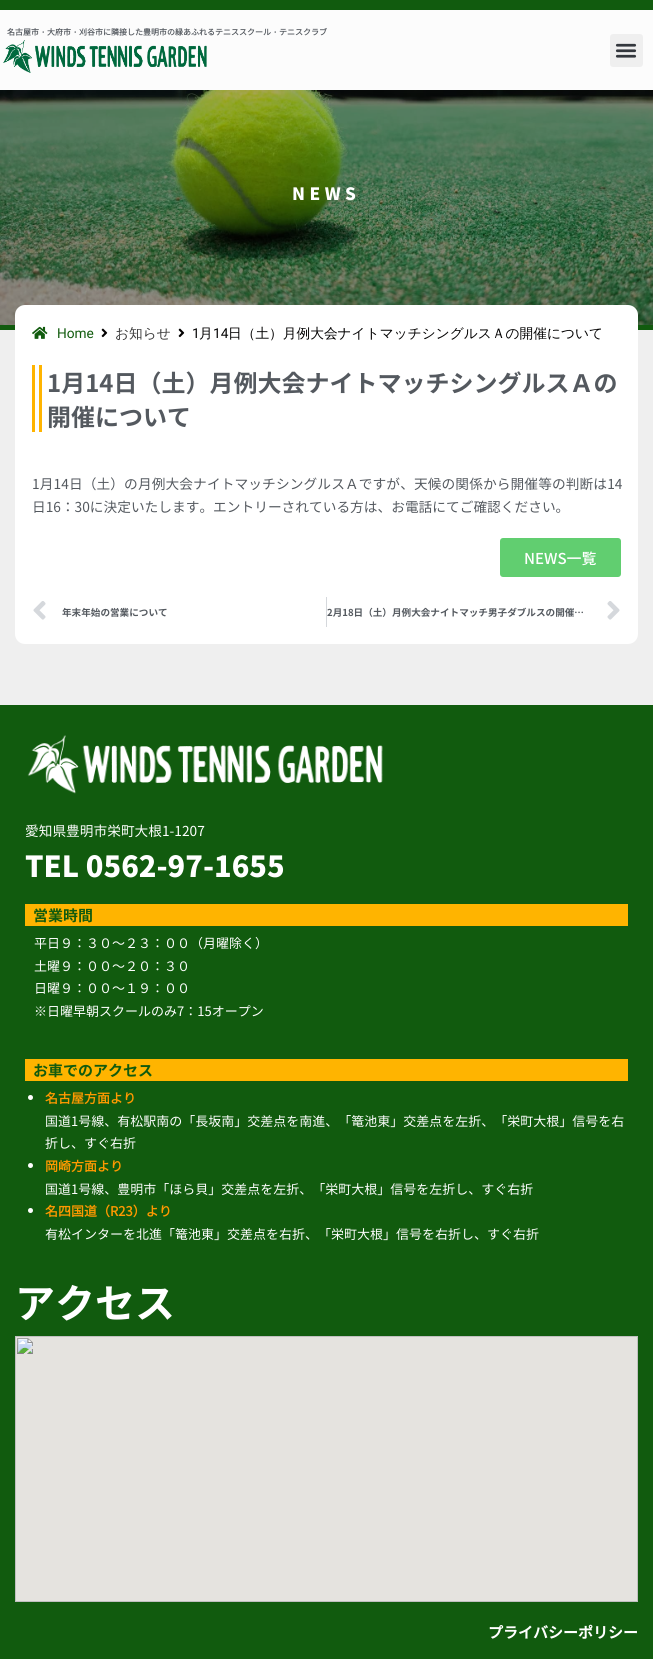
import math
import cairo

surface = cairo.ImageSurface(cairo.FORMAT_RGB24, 653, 1659)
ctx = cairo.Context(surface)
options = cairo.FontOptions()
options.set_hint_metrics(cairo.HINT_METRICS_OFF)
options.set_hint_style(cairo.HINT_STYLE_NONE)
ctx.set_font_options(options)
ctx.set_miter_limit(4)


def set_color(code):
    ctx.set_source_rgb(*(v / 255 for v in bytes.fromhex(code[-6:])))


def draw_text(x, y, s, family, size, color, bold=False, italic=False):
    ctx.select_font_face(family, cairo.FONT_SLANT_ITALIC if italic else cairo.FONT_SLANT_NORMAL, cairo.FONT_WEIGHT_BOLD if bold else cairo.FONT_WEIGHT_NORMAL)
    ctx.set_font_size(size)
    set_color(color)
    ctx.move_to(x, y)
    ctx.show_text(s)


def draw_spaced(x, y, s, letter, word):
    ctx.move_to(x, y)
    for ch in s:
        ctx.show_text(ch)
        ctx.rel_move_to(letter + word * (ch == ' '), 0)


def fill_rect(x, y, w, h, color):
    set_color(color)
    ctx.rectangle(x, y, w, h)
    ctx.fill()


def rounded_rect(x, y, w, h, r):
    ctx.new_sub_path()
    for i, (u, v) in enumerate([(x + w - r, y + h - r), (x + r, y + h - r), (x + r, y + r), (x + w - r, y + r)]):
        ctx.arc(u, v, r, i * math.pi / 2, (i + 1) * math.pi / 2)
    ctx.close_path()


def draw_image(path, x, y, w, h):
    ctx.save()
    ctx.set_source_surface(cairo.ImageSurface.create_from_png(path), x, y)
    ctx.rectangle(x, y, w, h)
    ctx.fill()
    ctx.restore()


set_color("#efefef")
ctx.paint()
fill_rect(0, 10, 653, 80, "#fcfcfc")
fill_rect(0, 0, 653, 10, "#115b0e")
draw_text(7, 35, "名古屋市", "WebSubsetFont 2", 8, "#54595f", bold=True)
draw_text(39, 35, "・", "WenQuanYi Zen Hei", 8, "#54595f", bold=True)
draw_text(47, 35, "大府市", "WebSubsetFont 2", 8, "#54595f", bold=True)
draw_text(71, 35, "・", "WenQuanYi Zen Hei", 8, "#54595f", bold=True)
draw_text(79, 35, "刈谷市に隣接した豊明市の緑あふれるテニススクール", "WebSubsetFont 2", 8, "#54595f", bold=True)
draw_text(271, 35, "・", "WenQuanYi Zen Hei", 8, "#54595f", bold=True)
draw_text(279, 35, "テニスクラブ", "WebSubsetFont 2", 8, "#54595f", bold=True)
draw_image("assets/img1.png", 3, 40, 204, 33)
set_color("#efefef")
rounded_rect(610, 34, 33, 33, 3)
ctx.fill()
draw_image("assets/img2.png", 615, 43, 22, 15)
draw_image("assets/img3.png", 0, 90, 653, 235)
fill_rect(0, 325, 653, 5, "#115b0e")
ctx.select_font_face("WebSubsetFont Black")
ctx.set_font_size(17)
set_color("#ffffff")
draw_spaced(292, 200, "NEWS", 4.5, 0)
rounded_rect(15, 305, 623, 339, 10)
ctx.fill()
draw_image("assets/img4.png", 32, 326, 16, 13)
draw_text(57, 338, "Home", "Roboto", 13.7, "#115b0e")
draw_image("assets/img5.png", 101, 328, 7, 10)
draw_text(115, 338, "お知らせ", "WenQuanYi Zen Hei Medium", 13.7, "#3a3a3a")
draw_image("assets/img5.png", 178, 328, 7, 10)
draw_text(192, 338, "1", "Roboto", 13.7, "#020101")
draw_text(199, 338, "月", "WenQuanYi Zen Hei Medium", 13.7, "#020101")
draw_text(213, 338, "14", "Roboto", 13.7, "#020101")
draw_text(228, 338, "日（土）月例大会ナイトマッチシングルスＡの開催について", "WenQuanYi Zen Hei Medium", 13.7, "#020101")
fill_rect(32, 365, 3, 67, "#ffb400")
fill_rect(39, 365, 3, 67, "#ffb400")
draw_text(47, 392, "1月14日（土）月例大会ナイトマッチシングルスＡの", "WebSubsetFont", 24, "#54595f", bold=True)
draw_text(47, 426, "開催について", "WebSubsetFont", 24, "#54595f", bold=True)
ctx.select_font_face("WebSubsetFont")
ctx.set_font_size(13.7)
draw_spaced(32, 489, "1月14日（土）の月例大会ナイトマッチシングルスＡですが、天候の関係から開催等の判断は14", 0.1, 0)
draw_text(32, 512, "日16：30に決定いたします。エントリーされている方は、お電話にてご確認ください。", "WebSubsetFont", 13.7, "#54595f")
set_color("#61ce70")
rounded_rect(500, 538, 121, 39, 3)
ctx.fill()
draw_text(524, 564, "NEWS一覧", "WebSubsetFont Medium", 15, "#ffffff")
draw_image("assets/img6.png", 33, 601, 13, 19)
draw_text(62, 616, "年末年始の営業について", "WebSubsetFont", 9.6, "#54595f", bold=True)
fill_rect(326, 597, 1, 30, "#d5d8dc")
draw_text(327, 616, "2月18日（土）月例大会ナイトマッチ男子ダブルスの開催…", "WebSubsetFont", 9.6, "#54595f", bold=True)
draw_image("assets/img7.png", 607, 601, 13, 19)
fill_rect(0, 705, 653, 954, "#115b0e")
draw_image("assets/img8.png", 27, 735, 356, 59)
draw_text(25, 836, "愛知県豊明市栄町大根1-1207", "WebSubsetFont", 13.7, "#ffffff")
draw_text(25, 877, "TEL 0562-97-1655", "WebSubsetFont Black", 29, "#ffffff")
fill_rect(25, 904, 603, 22, "#ffb400")
draw_text(33, 921, "営業時間", "WebSubsetFont", 15, "#115b0e", bold=True)
draw_text(34, 948, "平日９：３０～２３：００（月曜除く）", "WebSubsetFont", 13, "#ffffff")
draw_text(34, 971, "土曜９：００～２０：３０", "WebSubsetFont", 13, "#ffffff")
draw_text(34, 993, "日曜９：００～１９：００", "WebSubsetFont", 13, "#ffffff")
draw_text(34, 1016, "※日曜早朝スクールのみ7：15オープン", "WebSubsetFont", 13, "#ffffff")
fill_rect(25, 1059, 603, 22, "#ffb400")
draw_text(33, 1076, "お車でのアクセス", "WebSubsetFont", 15, "#115b0e", bold=True)
set_color("#ffffff")
ctx.new_path()
ctx.arc(30.5, 1097.5, 2.5, 0, 2 * math.pi)
ctx.fill()
draw_text(45, 1103, "名古屋方面より", "WebSubsetFont 2", 13, "#ff9900", bold=True)
draw_text(45, 1126, "国道1号線、有松駅南の「長坂南」交差点を南進、「篭池東」交差点を左折、「栄町大根」信号を右", "WebSubsetFont", 13, "#ffffff")
draw_text(45, 1148, "折し、すぐ右折", "WebSubsetFont", 13, "#ffffff")
ctx.new_path()
ctx.arc(30.5, 1165.5, 2.5, 0, 2 * math.pi)
ctx.fill()
draw_text(45, 1171, "岡崎方面より", "WebSubsetFont 2", 13, "#ff9900", bold=True)
draw_text(45, 1194, "国道1号線、豊明市「ほら貝」交差点を左折、「栄町大根」信号を左折し、すぐ右折", "WebSubsetFont", 13, "#ffffff")
ctx.new_path()
ctx.arc(30.5, 1210.5, 2.5, 0, 2 * math.pi)
ctx.fill()
draw_text(45, 1216, "名四国道（R23）より", "WebSubsetFont 2", 13, "#ff9900", bold=True)
draw_text(45, 1239, "有松インターを北進「篭池東」交差点を右折、「栄町大根」信号を右折し、すぐ右折", "WebSubsetFont", 13, "#ffffff")
draw_text(15, 1318, "アクセス", "WebSubsetFont", 40, "#ffffff", bold=True)
draw_image("assets/img9.png", 15, 1336, 623, 266)
draw_text(488, 1638, "プライバシーポリシー", "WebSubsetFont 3", 15, "#ffffff", bold=True)
surface.write_to_png("output.png")
